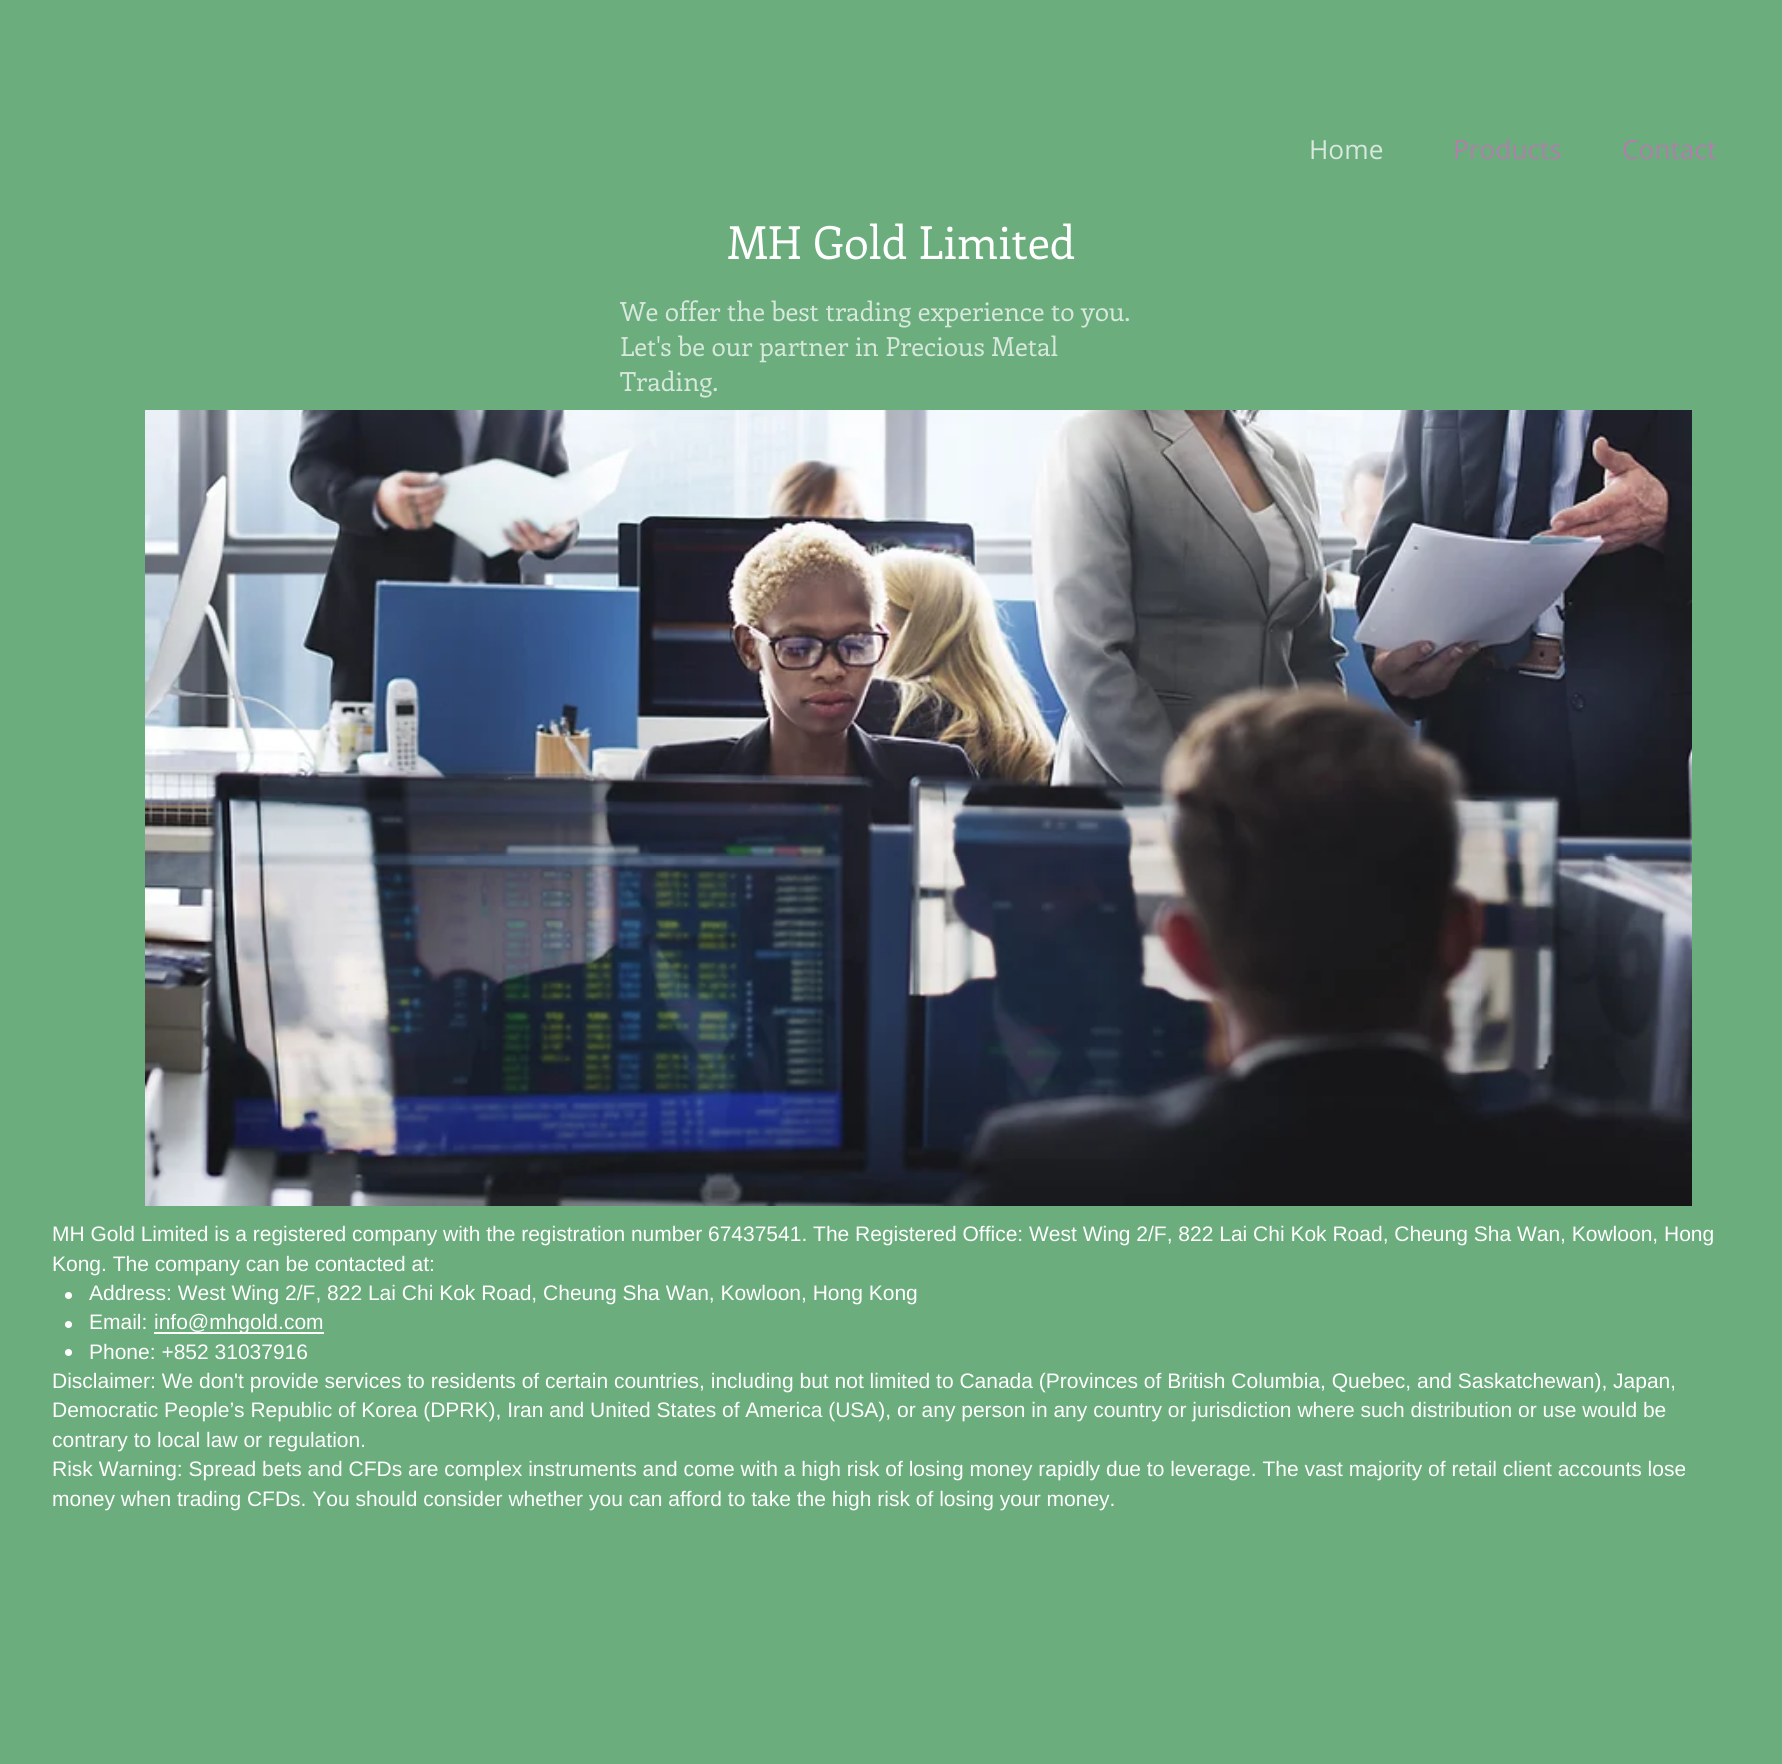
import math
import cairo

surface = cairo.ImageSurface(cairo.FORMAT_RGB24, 1782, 1764)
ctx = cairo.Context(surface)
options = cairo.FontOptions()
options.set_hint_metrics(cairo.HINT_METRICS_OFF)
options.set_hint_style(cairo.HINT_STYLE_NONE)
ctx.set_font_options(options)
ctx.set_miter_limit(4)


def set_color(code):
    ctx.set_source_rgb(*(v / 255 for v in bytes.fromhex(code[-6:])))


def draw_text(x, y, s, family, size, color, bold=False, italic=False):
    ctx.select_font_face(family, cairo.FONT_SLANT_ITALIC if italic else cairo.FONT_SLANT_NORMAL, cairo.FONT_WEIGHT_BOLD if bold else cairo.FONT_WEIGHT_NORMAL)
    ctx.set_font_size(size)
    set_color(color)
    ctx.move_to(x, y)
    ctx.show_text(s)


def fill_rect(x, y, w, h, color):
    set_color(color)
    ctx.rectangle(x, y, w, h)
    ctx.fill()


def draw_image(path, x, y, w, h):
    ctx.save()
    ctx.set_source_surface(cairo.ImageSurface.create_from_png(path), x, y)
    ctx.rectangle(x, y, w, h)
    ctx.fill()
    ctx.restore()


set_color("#6bad7d")
ctx.paint()
draw_text(1309, 159, "Home", "Open Sans", 26.25, "#d7e8dc")
draw_text(1453, 159, "Products", "Open Sans", 26.25, "#b07eab")
draw_text(1622, 159, "Contact", "Open Sans", 26.25, "#b07eab")
draw_text(727, 259, "MH Gold Limited", "Enriqueta", 45.5, "#ffffff")
draw_text(620, 321, "We offer the best trading experience to you.", "Enriqueta", 26.25, "#d7e8dc")
draw_text(620, 356, "Let's be our partner in Precious Metal", "Enriqueta", 26.25, "#d7e8dc")
draw_text(620, 391, "Trading.", "Enriqueta", 26.25, "#d7e8dc")
draw_image("assets/img1.png", 145, 410, 1547, 796)
draw_text(52, 1241, "MH Gold Limited is a registered company with the registration number 67437541. The Registered Office: West Wing 2/F, 822 Lai Chi Kok Road, Cheung Sha Wan, Kowloon, Hong", "Liberation Sans", 21, "#ffffff")
draw_text(52, 1271, "Kong. The company can be contacted at:", "Liberation Sans", 21, "#ffffff")
ctx.new_path()
ctx.arc(68.5, 1295.5, 3.5, 0, 2 * math.pi)
ctx.fill()
draw_text(89, 1300, "Address: West Wing 2/F, 822 Lai Chi Kok Road, Cheung Sha Wan, Kowloon, Hong Kong", "Liberation Sans", 21, "#ffffff")
ctx.new_path()
ctx.arc(68.5, 1324.5, 3.5, 0, 2 * math.pi)
ctx.fill()
draw_text(89, 1329, "Email:", "Liberation Sans", 21, "#ffffff")
fill_rect(154, 1332, 170, 2, "#ffffff")
draw_text(154, 1329, "info@mhgold.com", "Liberation Sans", 21, "#ffffff")
ctx.new_path()
ctx.arc(68.5, 1352.5, 3.5, 0, 2 * math.pi)
ctx.fill()
draw_text(89, 1359, "Phone: +852 31037916", "Liberation Sans", 21, "#ffffff")
draw_text(52, 1388, "Disclaimer: We don't provide services to residents of certain countries, including but not limited to Canada (Provinces of British Columbia, Quebec, and Saskatchewan), Japan,", "Liberation Sans", 21, "#ffffff")
draw_text(52, 1417, "Democratic People’s Republic of Korea (DPRK), Iran and United States of America (USA), or any person in any country or jurisdiction where such distribution or use would be", "Liberation Sans", 21, "#ffffff")
draw_text(52, 1447, "contrary to local law or regulation.", "Liberation Sans", 21, "#ffffff")
draw_text(52, 1476, "Risk Warning: Spread bets and CFDs are complex instruments and come with a high risk of losing money rapidly due to leverage. The vast majority of retail client accounts lose", "Liberation Sans", 21, "#ffffff")
draw_text(52, 1506, "money when trading CFDs. You should consider whether you can afford to take the high risk of losing your money.", "Liberation Sans", 21, "#ffffff")
surface.write_to_png("output.png")
